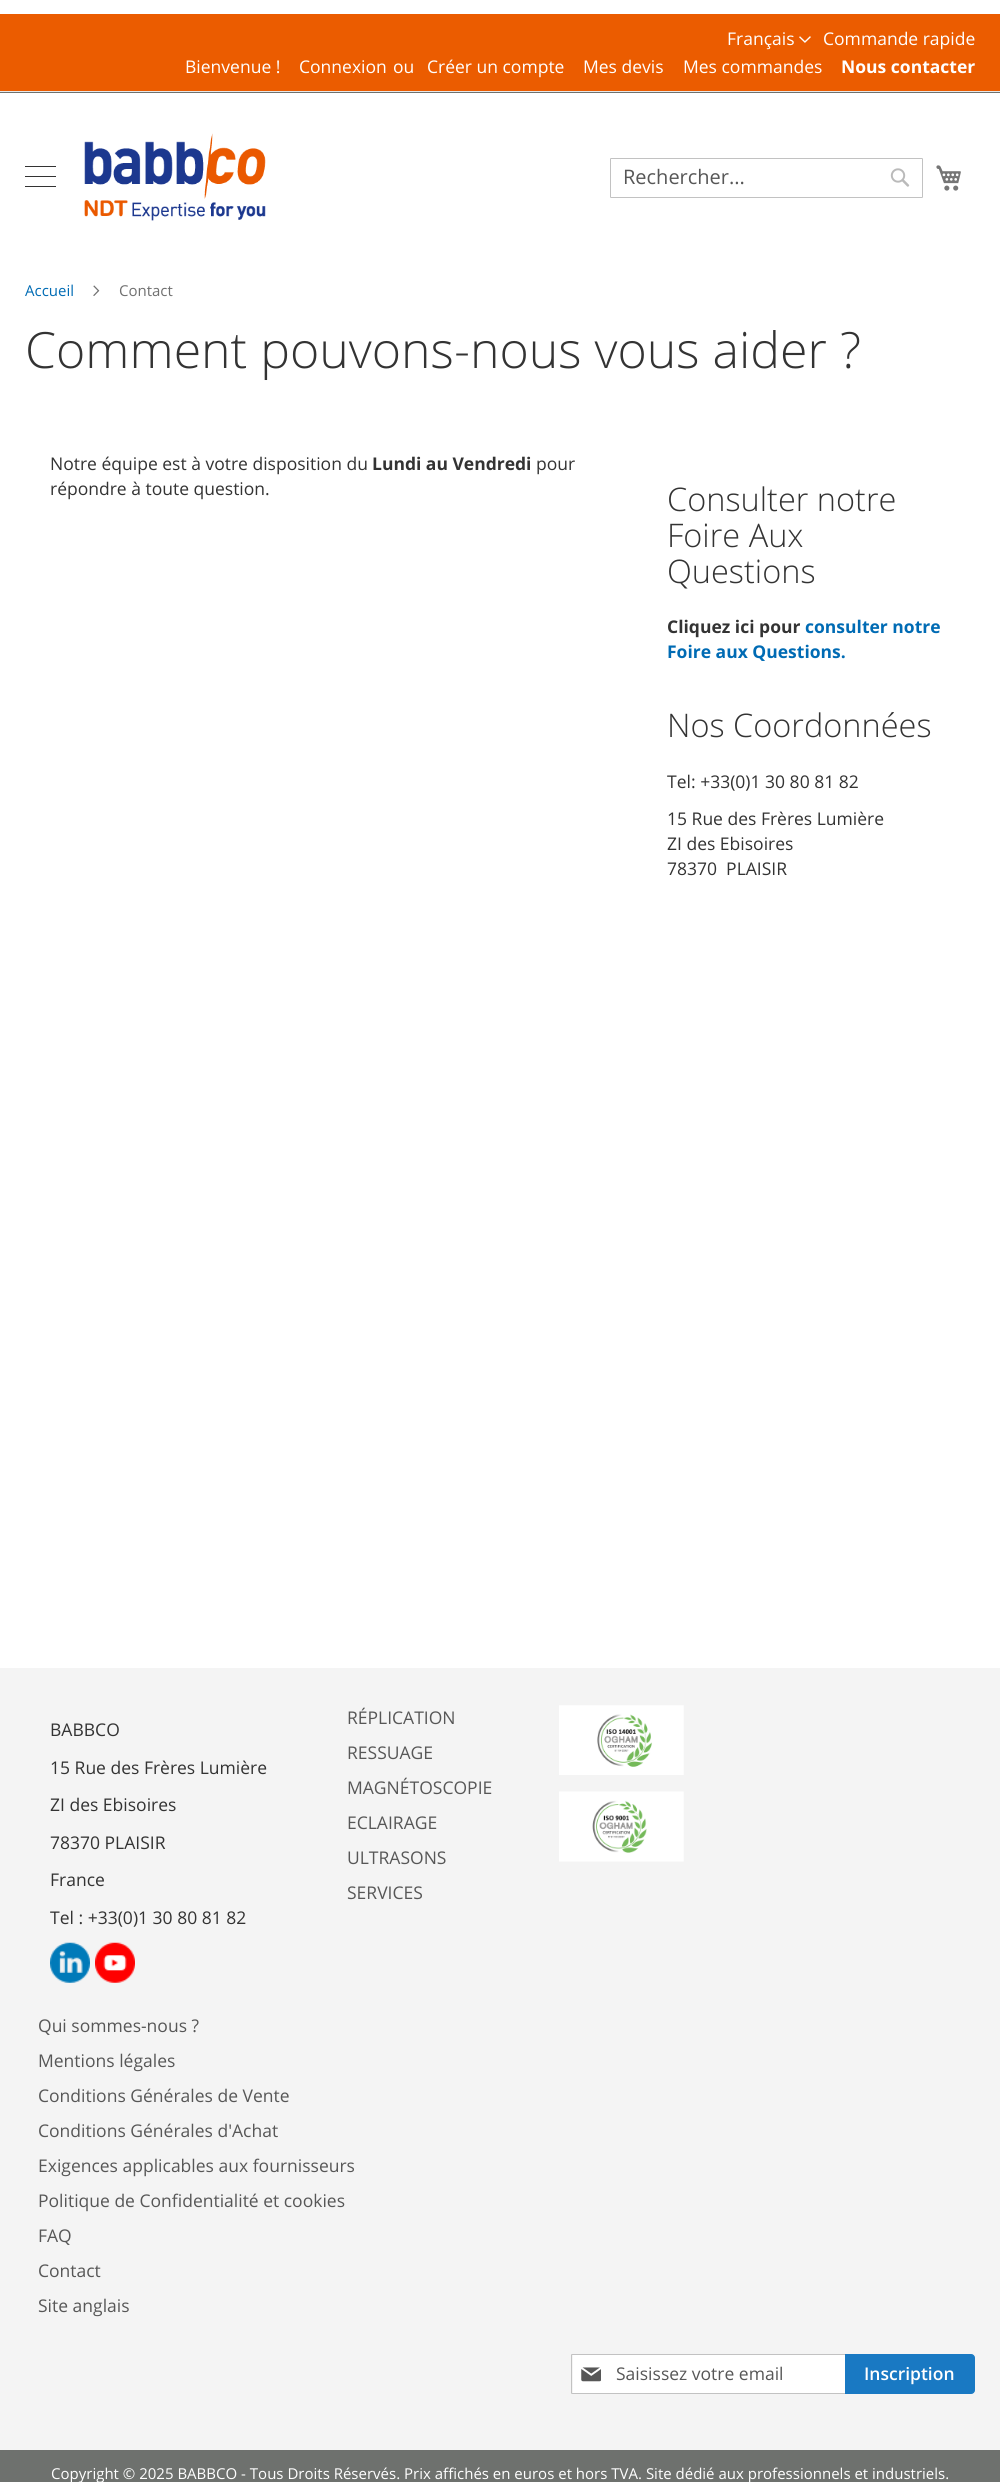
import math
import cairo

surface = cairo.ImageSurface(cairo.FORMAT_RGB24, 1000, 2482)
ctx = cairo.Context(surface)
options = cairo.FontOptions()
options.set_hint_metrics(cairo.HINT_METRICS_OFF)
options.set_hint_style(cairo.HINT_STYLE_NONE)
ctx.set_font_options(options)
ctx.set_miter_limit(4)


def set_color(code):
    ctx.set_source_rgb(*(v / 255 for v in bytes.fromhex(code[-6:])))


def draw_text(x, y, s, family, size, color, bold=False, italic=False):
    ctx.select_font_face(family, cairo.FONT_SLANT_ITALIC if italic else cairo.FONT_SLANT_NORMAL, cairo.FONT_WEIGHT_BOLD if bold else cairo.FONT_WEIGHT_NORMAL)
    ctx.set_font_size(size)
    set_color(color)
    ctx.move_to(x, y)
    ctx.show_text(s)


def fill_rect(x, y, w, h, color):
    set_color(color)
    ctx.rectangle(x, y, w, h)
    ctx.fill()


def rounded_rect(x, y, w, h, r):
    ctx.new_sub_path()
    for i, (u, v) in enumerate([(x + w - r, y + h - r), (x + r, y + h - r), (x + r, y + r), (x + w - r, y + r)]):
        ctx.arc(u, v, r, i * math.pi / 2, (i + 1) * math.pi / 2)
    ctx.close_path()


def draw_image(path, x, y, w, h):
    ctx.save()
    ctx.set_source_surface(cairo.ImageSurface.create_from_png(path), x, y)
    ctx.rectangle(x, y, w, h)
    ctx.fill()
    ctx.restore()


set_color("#ffffff")
ctx.paint()
fill_rect(0, 92, 1000, 1, "#6e716e")
fill_rect(0, 91, 1000, 1, "#e8e8e8")
fill_rect(0, 14, 1000, 77, "#eb5c00")
draw_text(727, 45, "Français", "Open Sans", 17.5, "#ffffff")
draw_image("assets/img1.png", 799, 36, 12, 7)
draw_text(823, 45, "Commande rapide", "Open Sans", 17.5, "#ffffff")
draw_text(185, 73, "Bienvenue !", "Open Sans", 17.5, "#ffffff")
draw_text(299, 73, "Connexion", "Open Sans", 17.5, "#ffffff")
draw_text(393, 73, "ou", "Open Sans", 17.5, "#ffffff")
draw_text(427, 73, "Créer un compte", "Open Sans", 17.5, "#ffffff")
draw_text(583, 73, "Mes devis", "Open Sans", 17.5, "#ffffff")
draw_text(683, 73, "Mes commandes", "Open Sans", 17.5, "#ffffff")
draw_text(841, 73, "Nous contacter", "Open Sans", 17.5, "#ffffff", bold=True)
fill_rect(25, 166, 31, 1, "#333333")
fill_rect(25, 186, 31, 1, "#333333")
fill_rect(25, 176, 31, 1, "#333333")
draw_image("assets/img2.png", 84, 133, 182, 88)
rounded_rect(610.5, 158.5, 312, 39, 0.5)
set_color("#c2c2c2")
ctx.set_line_width(1)
ctx.stroke()
draw_text(623, 184, "Rechercher...", "Open Sans", 20, "#575757")
draw_image("assets/img3.png", 890, 168, 20, 19)
draw_image("assets/img4.png", 936, 165, 25, 26)
draw_text(25, 296, "Accueil", "Open Sans", 15, "#006bb4")
draw_image("assets/img5.png", 93, 285, 7, 11)
draw_text(119, 296, "Contact", "Open Sans", 15, "#707070")
draw_text(25, 368, "Comment pouvons-nous vous aider ?", "Open Sans Light", 50, "#333333")
draw_text(50, 470, "Notre équipe est à votre disposition du", "Open Sans", 17.5, "#333333")
draw_text(372, 470, "Lundi au Vendredi", "Open Sans", 17.5, "#333333", bold=True)
draw_text(536, 470, "pour", "Open Sans", 17.5, "#333333")
draw_text(50, 495, "répondre à toute question.", "Open Sans", 17.5, "#333333")
draw_text(667, 511, "Consulter notre", "Open Sans Light", 32.5, "#333333")
draw_text(667, 547, "Foire Aux", "Open Sans Light", 32.5, "#333333")
draw_text(667, 583, "Questions", "Open Sans Light", 32.5, "#333333")
draw_text(667, 633, "Cliquez ici pour", "Open Sans", 17.5, "#333333", bold=True)
draw_text(805, 633, "consulter notre", "Open Sans", 17.5, "#006bb4", bold=True)
draw_text(667, 658, "Foire aux Questions.", "Open Sans", 17.5, "#006bb4", bold=True)
draw_text(667, 737, "Nos Coordonnées", "Open Sans Light", 32.5, "#333333")
draw_text(667, 788, "Tel: +33(0)1 30 80 81 82", "Open Sans", 17.5, "#333333")
draw_text(667, 825, "15 Rue des Frères Lumière", "Open Sans", 17.5, "#333333")
draw_text(667, 850, "ZI des Ebisoires", "Open Sans", 17.5, "#333333")
draw_text(667, 875, "78370  PLAISIR", "Open Sans", 17.5, "#333333")
fill_rect(0, 1668, 1000, 782, "#f4f4f4")
draw_text(50, 1736, "BABBCO", "Open Sans", 17.5, "#333333")
draw_text(50, 1774, "15 Rue des Frères Lumière", "Open Sans", 17.5, "#333333")
draw_text(50, 1811, "ZI des Ebisoires", "Open Sans", 17.5, "#333333")
draw_text(50, 1849, "78370 PLAISIR", "Open Sans", 17.5, "#333333")
draw_text(50, 1886, "France", "Open Sans", 17.5, "#333333")
draw_text(50, 1924, "Tel : +33(0)1 30 80 81 82", "Open Sans", 17.5, "#333333")
draw_image("assets/img6.png", 50, 1942, 40, 41)
draw_image("assets/img7.png", 95, 1942, 40, 41)
draw_text(347, 1724, "RÉPLICATION", "Open Sans", 17.5, "#575757")
draw_text(347, 1759, "RESSUAGE", "Open Sans", 17.5, "#575757")
draw_text(347, 1794, "MAGNÉTOSCOPIE", "Open Sans", 17.5, "#575757")
draw_text(347, 1829, "ECLAIRAGE", "Open Sans", 17.5, "#575757")
draw_text(347, 1864, "ULTRASONS", "Open Sans", 17.5, "#575757")
draw_text(347, 1899, "SERVICES", "Open Sans", 17.5, "#575757")
draw_image("assets/img8.png", 559, 1705, 125, 70)
draw_image("assets/img9.png", 559, 1791, 125, 71)
draw_text(38, 2032, "Qui sommes-nous ?", "Open Sans", 17.5, "#575757")
draw_text(38, 2067, "Mentions légales", "Open Sans", 17.5, "#575757")
draw_text(38, 2102, "Conditions Générales de Vente", "Open Sans", 17.5, "#575757")
draw_text(38, 2137, "Conditions Générales d'Achat", "Open Sans", 17.5, "#575757")
draw_text(38, 2172, "Exigences applicables aux fournisseurs", "Open Sans", 17.5, "#575757")
draw_text(38, 2207, "Politique de Confidentialité et cookies", "Open Sans", 17.5, "#575757")
draw_text(38, 2242, "FAQ", "Open Sans", 17.5, "#575757")
draw_text(38, 2277, "Contact", "Open Sans", 17.5, "#575757")
draw_text(38, 2312, "Site anglais", "Open Sans", 17.5, "#575757")
fill_rect(573, 2355, 272, 38, "#ffffff")
rounded_rect(571.5, 2354.5, 274, 39, 0.5)
set_color("#c2c2c2")
ctx.stroke()
draw_image("assets/img10.png", 581, 2367, 20, 15)
draw_text(616, 2380, "Saisissez votre email", "Open Sans", 17.5, "#575757")
set_color("#1979c3")
ctx.new_path()
ctx.move_to(845.5, 2354.5)
ctx.line_to(971, 2354.5)
ctx.curve_to(973, 2354.5, 974.5, 2356, 974.5, 2358)
ctx.line_to(974.5, 2390)
ctx.curve_to(974.5, 2392, 973, 2393.5, 971, 2393.5)
ctx.line_to(845.5, 2393.5)
ctx.close_path()
ctx.fill_preserve()
ctx.stroke()
draw_text(864, 2380, "Inscription", "Open Sans SemiBold", 17.5, "#ffffff")
fill_rect(0, 2450, 1000, 32, "#6e716e")
draw_text(51, 2479, "Copyright © 2025 BABBCO - Tous Droits Réservés. Prix affichés en euros et hors TVA. Site dédié aux professionnels et industriels.", "Open Sans", 15, "#ffffff")
surface.write_to_png("output.png")
